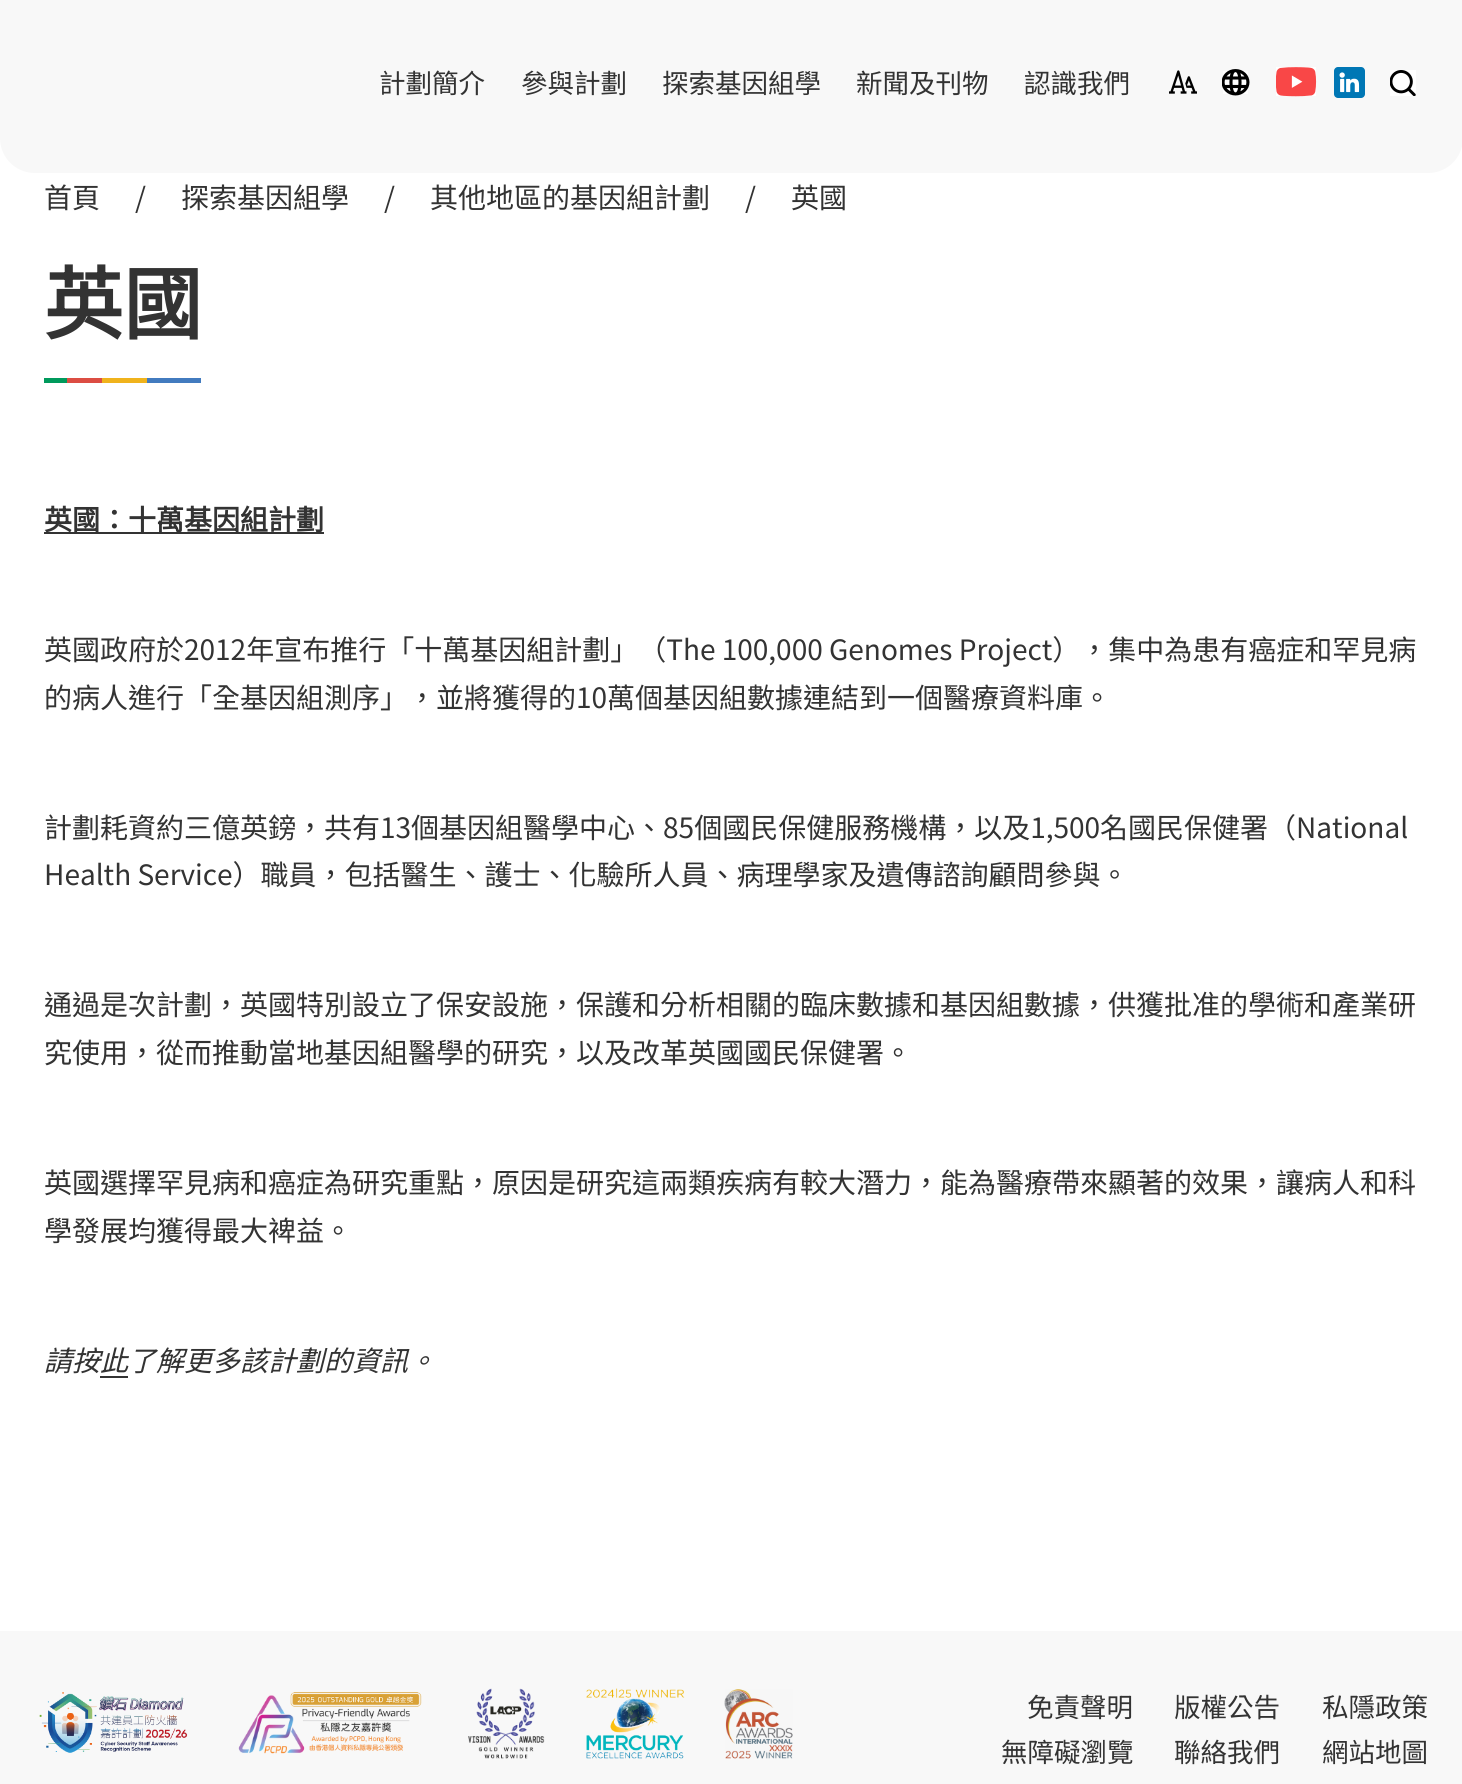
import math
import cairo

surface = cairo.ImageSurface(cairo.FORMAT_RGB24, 1462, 1784)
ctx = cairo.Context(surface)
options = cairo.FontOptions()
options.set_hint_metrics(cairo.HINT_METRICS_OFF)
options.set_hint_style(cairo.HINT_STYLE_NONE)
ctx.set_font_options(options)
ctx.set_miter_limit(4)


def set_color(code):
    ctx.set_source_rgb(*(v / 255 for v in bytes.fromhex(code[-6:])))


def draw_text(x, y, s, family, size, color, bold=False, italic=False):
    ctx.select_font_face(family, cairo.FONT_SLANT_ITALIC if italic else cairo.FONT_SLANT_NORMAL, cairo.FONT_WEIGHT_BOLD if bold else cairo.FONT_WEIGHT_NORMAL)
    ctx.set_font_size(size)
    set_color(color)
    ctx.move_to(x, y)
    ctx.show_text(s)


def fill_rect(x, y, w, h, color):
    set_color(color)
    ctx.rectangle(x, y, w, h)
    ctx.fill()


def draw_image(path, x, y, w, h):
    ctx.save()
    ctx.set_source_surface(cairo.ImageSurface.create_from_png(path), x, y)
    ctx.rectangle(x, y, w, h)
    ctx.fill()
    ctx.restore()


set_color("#ffffff")
ctx.paint()
set_color("#f8f8f8")
ctx.new_path()
ctx.move_to(0, 0)
ctx.line_to(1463, 0)
ctx.line_to(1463, 138)
ctx.curve_to(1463, 157.5, 1447.5, 173, 1428, 173)
ctx.line_to(35, 173)
ctx.curve_to(15.5, 173, 0, 157.5, 0, 138)
ctx.close_path()
ctx.fill()
draw_text(379, 93, "計劃簡介", "Noto Sans TC Thin", 26.5, "#333333")
draw_text(521, 93, "參與計劃", "Noto Sans TC Thin", 26.5, "#333333")
draw_text(662, 93, "探索基因組學", "Noto Sans TC Thin", 26.5, "#333333")
draw_text(856, 93, "新聞及刊物", "Noto Sans TC Thin", 26.5, "#333333")
draw_text(1024, 93, "認識我們", "Noto Sans TC Thin", 26.5, "#333333")
draw_image("assets/img1.png", 1169, 70, 28, 24)
draw_image("assets/img2.png", 1222, 69, 28, 27)
draw_image("assets/img3.png", 1276, 67, 41, 30)
draw_image("assets/img4.png", 1334, 67, 31, 31)
draw_image("assets/img5.png", 1390, 70, 26, 26)
draw_text(44, 208, "首頁", "Noto Sans TC Thin", 28, "#333333")
draw_text(135, 208, "/", "Noto Sans TC Thin", 28, "#333333")
draw_text(181, 208, "探索基因組學", "Noto Sans TC Thin", 28, "#333333")
draw_text(384, 208, "/", "Noto Sans TC Thin", 28, "#333333")
draw_text(430, 208, "其他地區的基因組計劃", "Noto Sans TC Thin", 28, "#333333")
draw_text(745, 208, "/", "Noto Sans TC Thin", 28, "#333333")
draw_text(791, 208, "英國", "Noto Sans TC Thin", 28, "#333333")
draw_text(44, 333, "英國", "Noto Sans TC", 79, "#333333", bold=True)
fill_rect(44, 378, 23, 5, "#009a5c")
fill_rect(67, 378, 35, 5, "#dc4d43")
fill_rect(102, 378, 45, 5, "#f0b31c")
fill_rect(147, 378, 54, 5, "#427bbf")
fill_rect(44, 532, 280, 2, "#333333")
draw_text(44, 530, "英國：十萬基因組計劃", "Noto Sans TC", 28, "#333333", bold=True)
draw_text(44, 660, "英國政府於2012年宣布推行「十萬基因組計劃」（The 100,000 Genomes Project），集中為患有癌症和罕見病", "Noto Sans TC Thin", 28, "#333333")
draw_text(44, 708, "的病人進行「全基因組測序」，並將獲得的10萬個基因組數據連結到一個醫療資料庫。", "Noto Sans TC Thin", 28, "#333333")
draw_text(44, 838, "計劃耗資約三億英鎊，共有13個基因組醫學中心、85個國民保健服務機構，以及1,500名國民保健署（National", "Noto Sans TC Thin", 28, "#333333")
draw_text(44, 885, "Health Service）職員，包括醫生、護士、化驗所人員、病理學家及遺傳諮詢顧問參與。", "Noto Sans TC Thin", 28, "#333333")
draw_text(44, 1015, "通過是次計劃，英國特別設立了保安設施，保護和分析相關的臨床數據和基因組數據，供獲批准的學術和產業研", "Noto Sans TC Thin", 28, "#333333")
draw_text(44, 1063, "究使用，從而推動當地基因組醫學的研究，以及改革英國國民保健署。", "Noto Sans TC Thin", 28, "#333333")
draw_text(44, 1193, "英國選擇罕見病和癌症為研究重點，原因是研究這兩類疾病有較大潛力，能為醫療帶來顯著的效果，讓病人和科", "Noto Sans TC Thin", 28, "#333333")
draw_text(44, 1241, "學發展均獲得最大裨益。", "Noto Sans TC Thin", 28, "#333333")
draw_text(44, 1371, "請按此了解更多該計劃的資訊。", "Noto Sans TC Thin", 28, "#333333", italic=True)
fill_rect(100, 1376, 28, 2, "#333333")
fill_rect(0, 1631, 1462, 153, "#f8f8f8")
draw_image("assets/img6.png", 39, 1692, 149, 61)
draw_image("assets/img7.png", 238, 1692, 184, 62)
draw_image("assets/img8.png", 468, 1688, 77, 71)
draw_image("assets/img9.png", 586, 1688, 99, 71)
draw_image("assets/img10.png", 724, 1689, 69, 70)
draw_text(1027, 1717, "免責聲明", "Noto Sans TC Thin", 26.5, "#333333")
draw_text(1174, 1717, "版權公告", "Noto Sans TC Thin", 26.5, "#333333")
draw_text(1322, 1717, "私隱政策", "Noto Sans TC Thin", 26.5, "#333333")
draw_text(1001, 1762, "無障礙瀏覽", "Noto Sans TC Thin", 26.5, "#333333")
draw_text(1174, 1762, "聯絡我們", "Noto Sans TC Thin", 26.5, "#333333")
draw_text(1322, 1762, "網站地圖", "Noto Sans TC Thin", 26.5, "#333333")
surface.write_to_png("output.png")
